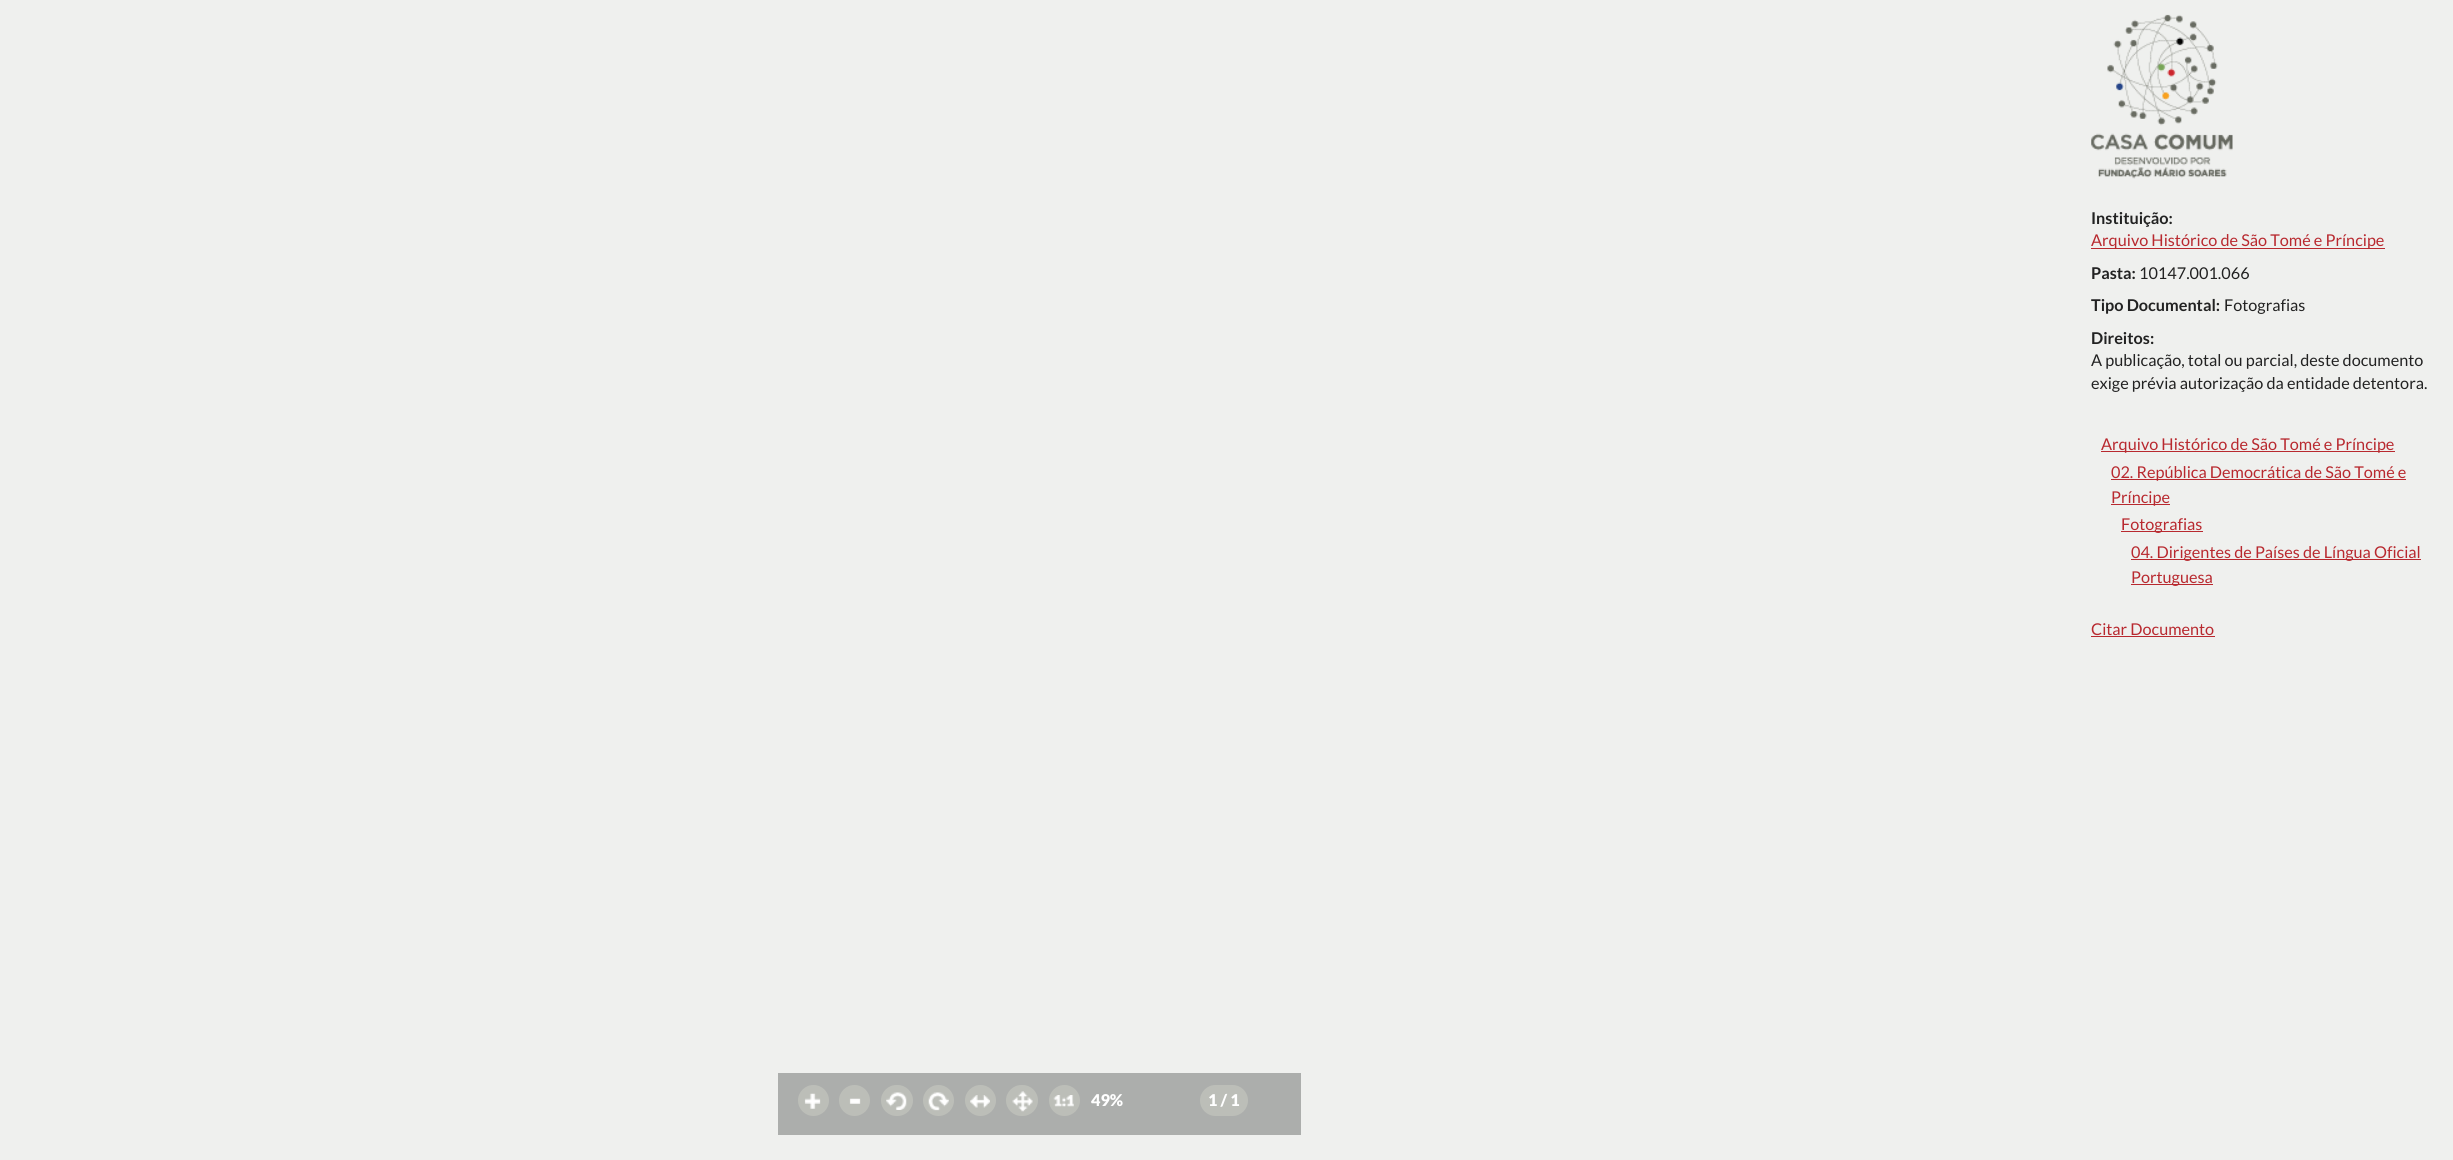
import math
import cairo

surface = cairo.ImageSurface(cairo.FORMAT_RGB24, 2453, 1160)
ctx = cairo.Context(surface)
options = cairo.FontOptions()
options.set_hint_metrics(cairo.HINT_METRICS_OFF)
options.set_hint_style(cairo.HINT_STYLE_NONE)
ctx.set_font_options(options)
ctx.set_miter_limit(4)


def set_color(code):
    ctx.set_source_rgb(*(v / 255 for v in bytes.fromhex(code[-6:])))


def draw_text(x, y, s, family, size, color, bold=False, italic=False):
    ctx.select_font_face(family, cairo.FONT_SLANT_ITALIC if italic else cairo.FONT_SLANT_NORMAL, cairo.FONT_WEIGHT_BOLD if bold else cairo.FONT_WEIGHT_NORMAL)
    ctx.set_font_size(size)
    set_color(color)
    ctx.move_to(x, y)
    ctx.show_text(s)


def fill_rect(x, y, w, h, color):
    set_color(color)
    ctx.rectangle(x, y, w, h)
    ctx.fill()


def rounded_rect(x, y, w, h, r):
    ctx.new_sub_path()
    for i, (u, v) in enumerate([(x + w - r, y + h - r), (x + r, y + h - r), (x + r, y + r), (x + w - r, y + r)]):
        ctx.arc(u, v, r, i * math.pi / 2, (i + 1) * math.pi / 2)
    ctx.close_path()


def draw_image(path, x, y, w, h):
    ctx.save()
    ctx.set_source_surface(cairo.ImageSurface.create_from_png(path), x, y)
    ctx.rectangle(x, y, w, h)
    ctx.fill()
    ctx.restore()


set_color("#eff0ee")
ctx.paint()
draw_image("assets/img1.png", 2091, 14, 142, 165)
draw_text(2091, 224, "Instituição:", "Lato", 16.25, "#222222", bold=True)
fill_rect(2091, 248, 294, 1, "#b8292f")
draw_text(2091, 246, "Arquivo Histórico de São Tomé e Príncipe", "Lato", 16.25, "#b8292f")
draw_text(2091, 279, "Pasta:", "Lato", 16.25, "#222222", bold=True)
draw_text(2139, 279, "10147.001.066", "Lato", 16.25, "#222222")
draw_text(2091, 311, "Tipo Documental:", "Lato", 16.25, "#222222", bold=True)
draw_text(2224, 311, "Fotografias", "Lato", 16.25, "#222222")
draw_text(2091, 344, "Direitos:", "Lato", 16.25, "#222222", bold=True)
draw_text(2091, 366, "A publicação, total ou parcial, deste documento", "Lato", 16.25, "#222222")
draw_text(2091, 389, "exige prévia autorização da entidade detentora.", "Lato", 16.25, "#222222")
fill_rect(2101, 451, 294, 1, "#b8292f")
draw_text(2101, 450, "Arquivo Histórico de São Tomé e Príncipe", "Lato", 16.25, "#b8292f")
fill_rect(2111, 479, 295, 1, "#b8292f")
draw_text(2111, 478, "02. República Democrática de São Tomé e", "Lato", 16.25, "#b8292f")
fill_rect(2111, 504, 59, 1, "#b8292f")
draw_text(2111, 503, "Príncipe", "Lato", 16.25, "#b8292f")
fill_rect(2121, 531, 82, 1, "#b8292f")
draw_text(2121, 530, "Fotografias", "Lato", 16.25, "#b8292f")
fill_rect(2131, 559, 290, 1, "#b8292f")
draw_text(2131, 558, "04. Dirigentes de Países de Língua Oficial", "Lato", 16.25, "#b8292f")
fill_rect(2131, 584, 82, 1, "#b8292f")
draw_text(2131, 583, "Portuguesa", "Lato", 16.25, "#b8292f")
draw_text(2091, 635, "Citar Documento", "Lato", 16.25, "#b8292f")
fill_rect(2091, 636, 124, 1, "#b8292f")
fill_rect(778, 1073, 523, 62, "#acaeac")
set_color("#bcbeb8")
ctx.new_path()
ctx.arc(813.5, 1100.5, 15.5, 0, 2 * math.pi)
ctx.fill()
draw_image("assets/img2.png", 804, 1093, 17, 16)
ctx.arc(854.5, 1100.5, 15.5, 0, 2 * math.pi)
ctx.fill()
draw_image("assets/img3.png", 849, 1098, 12, 6)
rounded_rect(881, 1085, 32, 31, 15.5)
ctx.fill()
draw_image("assets/img4.png", 886, 1092, 21, 18)
ctx.arc(938.5, 1100.5, 15.5, 0, 2 * math.pi)
ctx.fill()
draw_image("assets/img5.png", 928, 1092, 21, 19)
ctx.arc(980.5, 1100.5, 15.5, 0, 2 * math.pi)
ctx.fill()
draw_image("assets/img6.png", 970, 1095, 20, 13)
rounded_rect(1006, 1085, 32, 31, 15.5)
ctx.fill()
draw_image("assets/img7.png", 1012, 1091, 21, 21)
ctx.arc(1064.5, 1100.5, 15.5, 0, 2 * math.pi)
ctx.fill()
draw_image("assets/img8.png", 1053, 1095, 21, 12)
draw_text(1091, 1106, "49%", "Lato Black", 16.25, "#ffffff")
set_color("#bcbeb8")
rounded_rect(1200, 1085, 48, 31, 15.5)
ctx.fill()
draw_text(1208, 1106, "1 / 1", "Lato Black", 16.25, "#ffffff")
surface.write_to_png("output.png")
